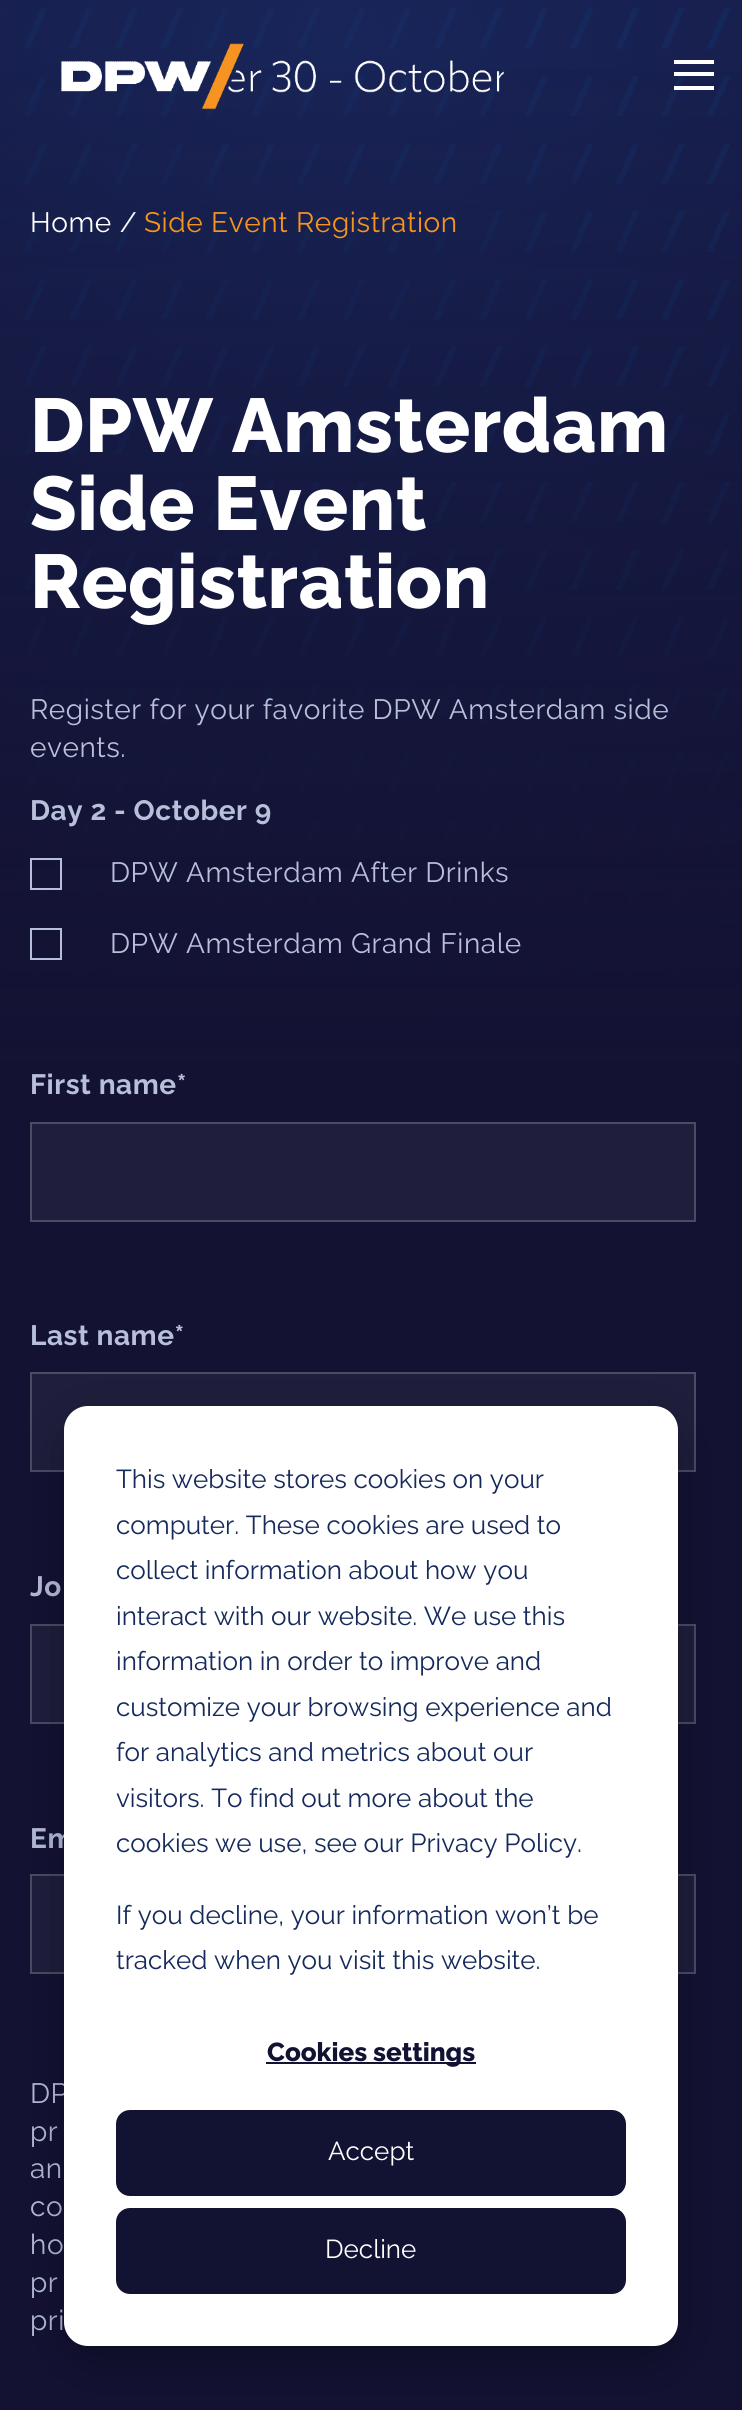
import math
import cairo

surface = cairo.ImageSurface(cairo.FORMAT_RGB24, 742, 2410)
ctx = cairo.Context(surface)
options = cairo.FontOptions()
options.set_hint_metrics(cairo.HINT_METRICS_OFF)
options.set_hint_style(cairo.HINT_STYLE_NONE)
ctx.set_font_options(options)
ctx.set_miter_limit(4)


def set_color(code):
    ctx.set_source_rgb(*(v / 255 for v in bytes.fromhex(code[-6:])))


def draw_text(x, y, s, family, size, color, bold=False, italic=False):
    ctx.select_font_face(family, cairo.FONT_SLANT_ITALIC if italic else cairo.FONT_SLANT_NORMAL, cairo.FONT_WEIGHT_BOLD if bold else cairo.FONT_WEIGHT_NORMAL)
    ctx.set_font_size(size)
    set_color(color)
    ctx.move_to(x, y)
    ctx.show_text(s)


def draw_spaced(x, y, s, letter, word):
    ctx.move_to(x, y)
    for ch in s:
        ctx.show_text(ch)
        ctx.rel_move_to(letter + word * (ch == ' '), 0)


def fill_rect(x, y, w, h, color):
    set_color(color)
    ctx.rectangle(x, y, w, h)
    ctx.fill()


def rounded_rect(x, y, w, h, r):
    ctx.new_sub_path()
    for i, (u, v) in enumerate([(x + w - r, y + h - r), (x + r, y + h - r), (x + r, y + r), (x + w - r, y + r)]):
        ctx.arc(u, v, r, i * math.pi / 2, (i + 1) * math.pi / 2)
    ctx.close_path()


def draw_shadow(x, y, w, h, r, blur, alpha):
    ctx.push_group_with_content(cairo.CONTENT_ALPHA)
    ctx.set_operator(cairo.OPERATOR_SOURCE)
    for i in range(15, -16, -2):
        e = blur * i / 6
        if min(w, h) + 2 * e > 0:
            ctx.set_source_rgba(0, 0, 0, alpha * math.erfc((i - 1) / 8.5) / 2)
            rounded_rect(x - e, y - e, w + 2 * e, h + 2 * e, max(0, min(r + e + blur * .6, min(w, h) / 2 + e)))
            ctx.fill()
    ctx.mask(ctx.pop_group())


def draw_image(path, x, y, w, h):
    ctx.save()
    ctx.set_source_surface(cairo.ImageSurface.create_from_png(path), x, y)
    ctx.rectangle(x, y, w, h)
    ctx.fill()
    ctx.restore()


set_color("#131233")
ctx.paint()
draw_image("assets/img2.png", 0, 0, 742, 1078)
gradient = cairo.LinearGradient(371, 1084, 371, -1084)
gradient.add_color_stop_rgba(0, 0.075, 0.071, 0.2, 1)
gradient.add_color_stop_rgba(0.5, 0.075, 0.071, 0.2, 0)
gradient.add_color_stop_rgba(1, 0.075, 0.071, 0.2, 1)
ctx.set_source(gradient)
ctx.rectangle(0, 70, 742, 1008)
ctx.fill()
draw_image("assets/img1.png", 61, 43, 444, 67)
fill_rect(674, 60, 40, 4, "#ffffff")
fill_rect(674, 72, 40, 4, "#ffffff")
fill_rect(674, 86, 40, 4, "#ffffff")
ctx.select_font_face("Raleway")
ctx.set_font_size(28)
draw_spaced(30, 232, "Home /", 0.6, 0)
set_color("#f7941e")
draw_spaced(144, 232, "Side Event Registration", 0.6, 0)
ctx.select_font_face("Raleway ExtraBold")
ctx.set_font_size(76)
set_color("#ffffff")
draw_spaced(30, 452, "DPW Amsterdam", 0.55, 0)
draw_spaced(30, 530, "Side Event", 0.55, 0)
draw_spaced(30, 608, "Registration", 0.55, 0)
ctx.select_font_face("Raleway")
ctx.set_font_size(28)
set_color("#b7bfd9")
draw_spaced(30, 719, "Register for your favorite DPW Amsterdam side", 0.55, 0)
draw_spaced(30, 757, "events.", 0.55, 0)
ctx.select_font_face("Raleway", cairo.FONT_SLANT_NORMAL, cairo.FONT_WEIGHT_BOLD)
draw_spaced(30, 820, "Day 2 - October 9", 0.55, 0)
ctx.rectangle(31, 859, 30, 30)
ctx.stroke()
ctx.select_font_face("Raleway")
draw_spaced(110, 882, "DPW Amsterdam After Drinks", 0.55, 0)
ctx.rectangle(31, 929, 30, 30)
ctx.stroke()
draw_spaced(110, 953, "DPW Amsterdam Grand Finale", 0.55, 0)
ctx.select_font_face("Raleway", cairo.FONT_SLANT_NORMAL, cairo.FONT_WEIGHT_BOLD)
draw_spaced(30, 1094, "First name*", 0.55, 0)
set_color("#1f1e3d")
ctx.rectangle(31, 1123, 664, 98)
ctx.fill_preserve()
set_color("#4c4b64")
ctx.stroke()
set_color("#b7bfd9")
draw_spaced(30, 1345, "Last name*", 0.55, 0)
set_color("#1f1e3d")
ctx.rectangle(31, 1373, 664, 98)
ctx.fill_preserve()
set_color("#4c4b64")
ctx.stroke()
set_color("#b7bfd9")
draw_spaced(30, 1596, "Jo", 0.55, 0)
set_color("#1f1e3d")
ctx.rectangle(31, 1625, 664, 98)
ctx.fill_preserve()
set_color("#4c4b64")
ctx.stroke()
set_color("#b7bfd9")
draw_spaced(30, 1848, "Em", 0.55, 0)
set_color("#1f1e3d")
ctx.rectangle(31, 1875, 664, 98)
ctx.fill_preserve()
set_color("#4c4b64")
ctx.stroke()
ctx.select_font_face("Raleway")
set_color("#b7bfd9")
draw_spaced(30, 2103, "DP", 0.55, 0)
draw_spaced(30, 2141, "pr", 0.55, 0)
draw_spaced(30, 2178, "an", 0.55, 0)
draw_spaced(30, 2216, "co", 0.55, 0)
draw_spaced(30, 2254, "ho", 0.55, 0)
draw_spaced(30, 2292, "pr", 0.55, 0)
draw_spaced(30, 2330, "pri", 0.55, 0)
set_color("#000000")
draw_shadow(64, 1422, 614, 940, 24, 28, 0.28)
set_color("#ffffff")
rounded_rect(64, 1406, 614, 940, 24)
ctx.fill()
draw_text(116, 1488, "This website stores cookies on your", "Raleway", 26, "#15295a")
draw_text(116, 1534, "computer. These cookies are used to", "Raleway", 26, "#15295a")
draw_text(116, 1579, "collect information about how you", "Raleway", 26, "#15295a")
draw_text(116, 1625, "interact with our website. We use this", "Raleway", 26, "#15295a")
draw_text(116, 1670, "information in order to improve and", "Raleway", 26, "#15295a")
draw_text(116, 1716, "customize your browsing experience and", "Raleway", 26, "#15295a")
draw_text(116, 1761, "for analytics and metrics about our", "Raleway", 26, "#15295a")
draw_text(116, 1807, "visitors. To find out more about the", "Raleway", 26, "#15295a")
draw_text(116, 1852, "cookies we use, see our Privacy Policy.", "Raleway", 26, "#15295a")
draw_text(116, 1924, "If you decline, your information won’t be", "Raleway", 26, "#15295a")
draw_text(116, 1969, "tracked when you visit this website.", "Raleway", 26, "#15295a")
fill_rect(266, 2062, 210, 2, "#121233")
draw_text(267, 2061, "Cookies settings", "Raleway ExtraBold", 26, "#121233")
rounded_rect(117, 2111, 508, 84, 13)
ctx.fill_preserve()
ctx.stroke()
draw_text(328, 2160, "Accept", "Raleway", 26, "#ffffff")
set_color("#121233")
rounded_rect(117, 2209, 508, 84, 13)
ctx.fill_preserve()
ctx.stroke()
draw_text(325, 2258, "Decline", "Raleway", 26, "#ffffff")
surface.write_to_png("output.png")
